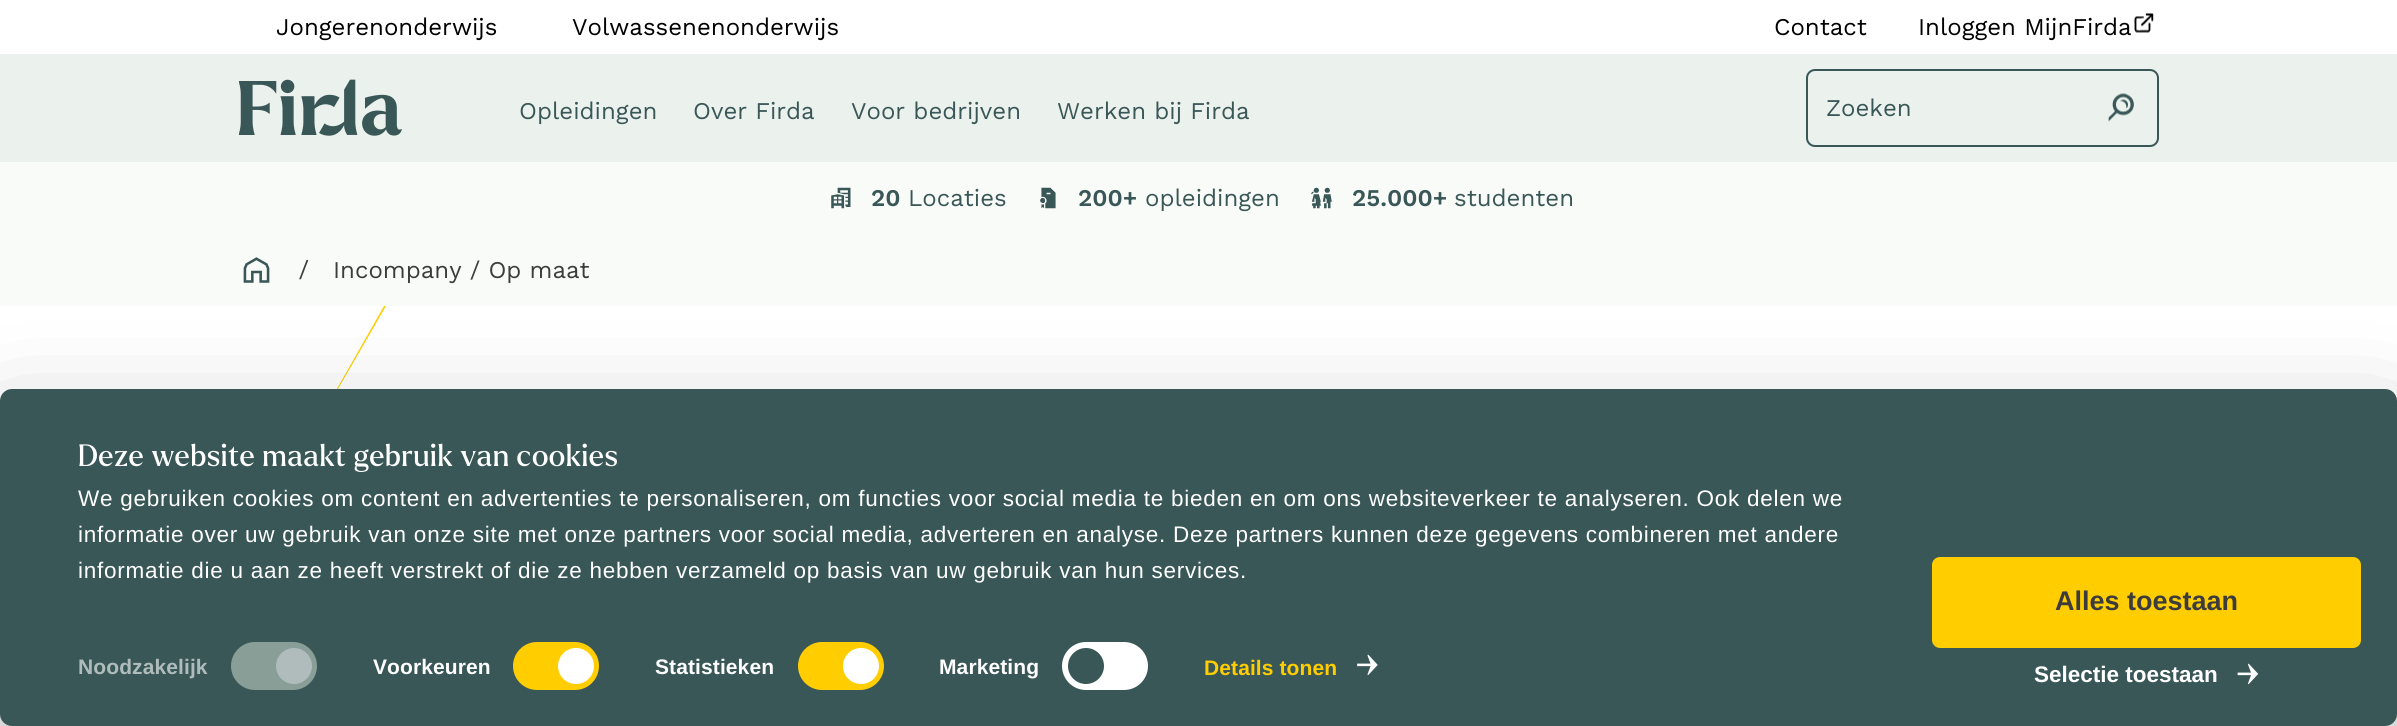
import math
import cairo

surface = cairo.ImageSurface(cairo.FORMAT_RGB24, 2397, 726)
ctx = cairo.Context(surface)
options = cairo.FontOptions()
options.set_hint_metrics(cairo.HINT_METRICS_OFF)
options.set_hint_style(cairo.HINT_STYLE_NONE)
ctx.set_font_options(options)
ctx.set_miter_limit(4)


def set_color(code):
    ctx.set_source_rgb(*(v / 255 for v in bytes.fromhex(code[-6:])))


def draw_text(x, y, s, family, size, color, bold=False, italic=False):
    ctx.select_font_face(family, cairo.FONT_SLANT_ITALIC if italic else cairo.FONT_SLANT_NORMAL, cairo.FONT_WEIGHT_BOLD if bold else cairo.FONT_WEIGHT_NORMAL)
    ctx.set_font_size(size)
    set_color(color)
    ctx.move_to(x, y)
    ctx.show_text(s)


def draw_spaced(x, y, s, letter, word):
    ctx.move_to(x, y)
    for ch in s:
        ctx.show_text(ch)
        ctx.rel_move_to(letter + word * (ch == ' '), 0)


def fill_rect(x, y, w, h, color):
    set_color(color)
    ctx.rectangle(x, y, w, h)
    ctx.fill()


def rounded_rect(x, y, w, h, r):
    ctx.new_sub_path()
    for i, (u, v) in enumerate([(x + w - r, y + h - r), (x + r, y + h - r), (x + r, y + r), (x + w - r, y + r)]):
        ctx.arc(u, v, r, i * math.pi / 2, (i + 1) * math.pi / 2)
    ctx.close_path()


def draw_shadow(x, y, w, h, r, blur, alpha):
    ctx.push_group_with_content(cairo.CONTENT_ALPHA)
    ctx.set_operator(cairo.OPERATOR_SOURCE)
    for i in range(15, -16, -2):
        e = blur * i / 6
        if min(w, h) + 2 * e > 0:
            ctx.set_source_rgba(0, 0, 0, alpha * math.erfc((i - 1) / 8.5) / 2)
            rounded_rect(x - e, y - e, w + 2 * e, h + 2 * e, max(0, min(r + e + blur * .6, min(w, h) / 2 + e)))
            ctx.fill()
    ctx.mask(ctx.pop_group())


def draw_image(path, x, y, w, h):
    ctx.save()
    ctx.set_source_surface(cairo.ImageSurface.create_from_png(path), x, y)
    ctx.rectangle(x, y, w, h)
    ctx.fill()
    ctx.restore()


set_color("#ffffff")
ctx.paint()
draw_text(276, 35, "Jongerenonderwijs", "Work Sans", 24, "#000000")
draw_text(572, 35, "Volwassenenonderwijs", "Work Sans", 24, "#000000")
draw_text(1774, 35, "Contact", "Work Sans", 24, "#000000")
draw_text(1918, 35, "Inloggen MijnFirda", "Work Sans", 24, "#000000")
draw_image("assets/img1.png", 2134, 13, 20, 20)
fill_rect(0, 54, 2397, 108, "#ebf1ed")
draw_image("assets/img2.png", 239, 79, 163, 57)
draw_text(519, 119, "Opleidingen", "Work Sans", 24, "#3a5757")
draw_text(693, 119, "Over Firda", "Work Sans", 24, "#3a5757")
draw_text(851, 119, "Voor bedrijven", "Work Sans", 24, "#3a5757")
draw_text(1057, 119, "Werken bij Firda", "Work Sans", 24, "#3a5757")
rounded_rect(1807, 70, 351, 76, 8)
ctx.stroke()
draw_text(1826, 116, "Zoeken", "Work Sans", 24, "#3a5757")
draw_image("assets/img3.png", 2108, 93, 26, 29)
fill_rect(0, 162, 2397, 144, "#f9fbf9")
draw_image("assets/img4.png", 831, 187, 20, 22)
draw_text(871, 206, "20", "Work Sans SemiBold", 24, "#3a5757")
draw_text(908, 206, "Locaties", "Work Sans", 24, "#3a5757")
draw_image("assets/img5.png", 1040, 187, 16, 22)
draw_text(1078, 206, "200+", "Work Sans SemiBold", 24, "#3a5757")
draw_text(1145, 206, "opleidingen", "Work Sans", 24, "#3a5757")
draw_image("assets/img6.png", 1311, 187, 21, 22)
draw_text(1352, 206, "25.000+", "Work Sans SemiBold", 24, "#3a5757")
draw_text(1454, 206, "studenten", "Work Sans", 24, "#3a5757")
draw_image("assets/img7.png", 243, 257, 27, 26)
draw_image("assets/img8.png", 299, 260, 10, 20)
draw_text(333, 278, "Incompany / Op maat", "Work Sans", 24, "#3c3c3c")
set_color("#ffcd00")
ctx.new_path()
ctx.move_to(384, 306)
ctx.line_to(386, 306)
ctx.line_to(327, 408)
ctx.line_to(326, 408)
ctx.close_path()
ctx.fill()
set_color("#000000")
draw_shadow(0, 434, 2397, 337, 12, 52.5, 0.3)
set_color("#3a5757")
rounded_rect(0, 389, 2397, 337, 12)
ctx.fill()
ctx.select_font_face("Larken")
ctx.set_font_size(30)
set_color("#ffffff")
draw_spaced(78, 466, "Deze website maakt gebruik van cookies", 0.4, 0)
ctx.select_font_face("Liberation Sans")
ctx.set_font_size(22.5)
draw_spaced(78, 506, "We gebruiken cookies om content en advertenties te personaliseren, om functies voor social media te bieden en om ons websiteverkeer te analyseren. Ook delen we", 0.75, 0)
draw_spaced(78, 542, "informatie over uw gebruik van onze site met onze partners voor social media, adverteren en analyse. Deze partners kunnen deze gegevens combineren met andere", 0.75, 0)
draw_spaced(78, 578, "informatie die u aan ze heeft verstrekt of die ze hebben verzameld op basis van uw gebruik van hun services.", 0.75, 0)
ctx.select_font_face("Liberation Sans", cairo.FONT_SLANT_NORMAL, cairo.FONT_WEIGHT_BOLD)
ctx.set_font_size(21)
set_color("#b0bcbc")
draw_spaced(78, 674, "Noodzakelijk", 0.1, 0)
set_color("#889e97")
rounded_rect(231, 642, 86, 48, 24)
ctx.fill()
set_color("#b0bcbc")
ctx.arc(294, 666, 18, 0, 2 * math.pi)
ctx.fill()
set_color("#ffffff")
draw_spaced(373, 674, "Voorkeuren", 0.1, 0)
set_color("#ffcd00")
rounded_rect(513, 642, 86, 48, 24)
ctx.fill()
set_color("#ffffff")
ctx.arc(576, 666, 18, 0, 2 * math.pi)
ctx.fill()
draw_spaced(655, 674, "Statistieken", 0.1, 0)
set_color("#ffcd00")
rounded_rect(798, 642, 86, 48, 24)
ctx.fill()
set_color("#ffffff")
ctx.arc(861, 666, 18, 0, 2 * math.pi)
ctx.fill()
draw_spaced(939, 674, "Marketing", 0.1, 0)
rounded_rect(1062, 642, 86, 48, 24)
ctx.fill()
set_color("#3a5757")
ctx.arc(1086, 666, 18, 0, 2 * math.pi)
ctx.fill()
set_color("#ffcd00")
draw_spaced(1204, 675, "Details tonen", 0.1, 0)
draw_image("assets/img9.png", 1357, 654, 21, 22)
rounded_rect(1933.5, 558.5, 426, 88, 6.5)
ctx.fill_preserve()
ctx.set_line_width(3)
ctx.stroke()
draw_text(2055, 610, "Alles toestaan", "Liberation Sans", 27, "#3c3c3c", bold=True)
draw_text(2034, 682, "Selectie toestaan", "Liberation Sans", 22.5, "#ffffff", bold=True)
draw_image("assets/img10.png", 2237, 663, 22, 22)
surface.write_to_png("output.png")
